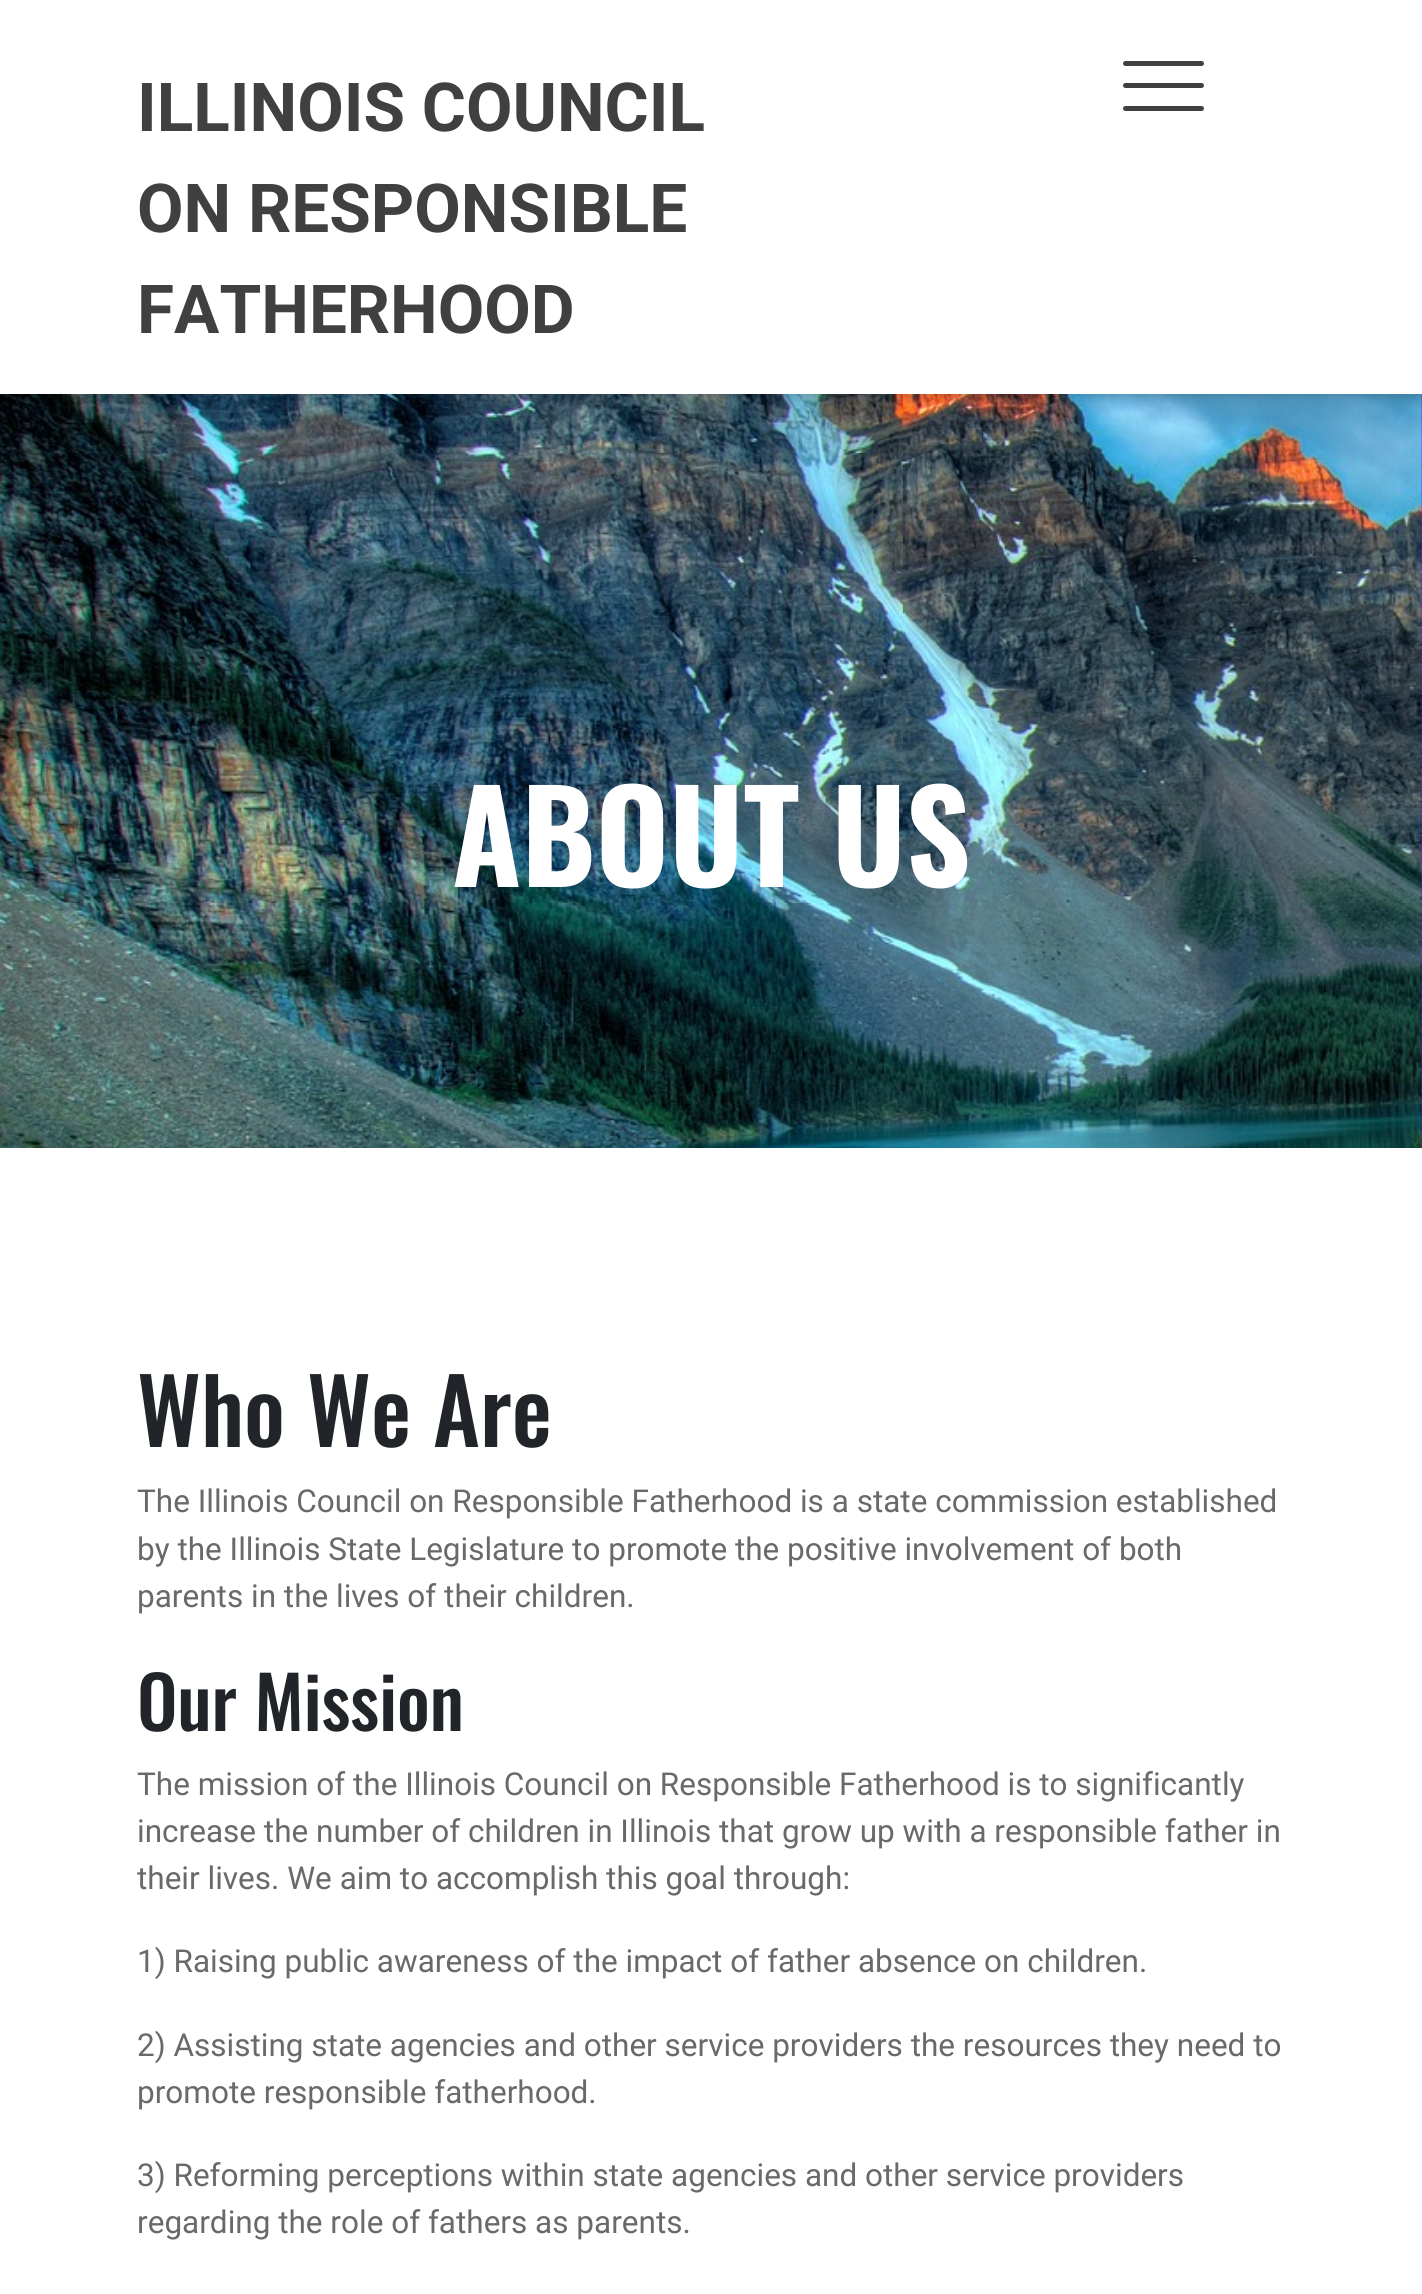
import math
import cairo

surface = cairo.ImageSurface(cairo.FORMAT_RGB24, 1422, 2294)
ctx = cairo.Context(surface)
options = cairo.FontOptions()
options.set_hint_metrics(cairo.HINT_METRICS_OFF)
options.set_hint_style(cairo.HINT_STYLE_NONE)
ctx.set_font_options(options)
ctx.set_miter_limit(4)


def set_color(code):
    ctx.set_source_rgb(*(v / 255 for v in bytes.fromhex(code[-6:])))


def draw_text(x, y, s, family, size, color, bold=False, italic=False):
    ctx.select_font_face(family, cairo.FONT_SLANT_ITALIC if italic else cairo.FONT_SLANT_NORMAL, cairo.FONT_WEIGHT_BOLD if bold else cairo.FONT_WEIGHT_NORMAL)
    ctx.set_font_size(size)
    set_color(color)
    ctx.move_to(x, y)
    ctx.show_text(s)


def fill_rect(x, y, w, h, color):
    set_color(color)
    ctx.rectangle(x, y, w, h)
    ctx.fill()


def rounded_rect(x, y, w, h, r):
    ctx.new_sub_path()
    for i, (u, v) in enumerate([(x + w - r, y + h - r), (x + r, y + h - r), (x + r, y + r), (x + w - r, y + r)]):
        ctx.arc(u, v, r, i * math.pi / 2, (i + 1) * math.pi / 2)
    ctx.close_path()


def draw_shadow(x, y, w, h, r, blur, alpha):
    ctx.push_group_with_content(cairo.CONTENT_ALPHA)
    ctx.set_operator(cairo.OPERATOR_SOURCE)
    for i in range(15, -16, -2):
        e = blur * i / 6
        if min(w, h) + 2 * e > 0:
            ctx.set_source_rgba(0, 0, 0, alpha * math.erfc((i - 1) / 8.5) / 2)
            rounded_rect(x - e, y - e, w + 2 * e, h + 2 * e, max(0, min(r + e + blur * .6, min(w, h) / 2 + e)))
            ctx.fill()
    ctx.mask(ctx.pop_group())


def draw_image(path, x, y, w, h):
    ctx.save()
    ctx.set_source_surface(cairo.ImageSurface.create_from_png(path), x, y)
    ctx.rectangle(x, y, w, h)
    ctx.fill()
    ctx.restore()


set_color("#ffffff")
ctx.paint()
fill_rect(1421, 394, 1, 754, "#7f00ff")
draw_image("assets/img1.png", 0, 394, 1422, 754)
set_color("#000000")
draw_shadow(0, 2, 1422, 394, 0, 5.5, 0.18)
fill_rect(0, 0, 1422, 394, "#ffffff")
draw_text(137, 131, "ILLINOIS COUNCIL", "Roboto", 67.5, "#404040", bold=True)
draw_text(137, 232, "ON RESPONSIBLE", "Roboto", 67.5, "#404040", bold=True)
draw_text(137, 333, "FATHERHOOD", "Roboto", 67.5, "#404040", bold=True)
rounded_rect(1123, 61, 81, 5, 2.5)
ctx.fill()
rounded_rect(1123, 83, 81, 5, 2.5)
ctx.fill()
rounded_rect(1123, 106, 81, 5, 2.5)
ctx.fill()
draw_text(452, 887, "ABOUT US", "Oswald", 126, "#ffffff", bold=True)
draw_text(137, 1447, "Who We Are", "Oswald Medium", 90, "#212529")
draw_text(137, 1512, "The Illinois Council on Responsible Fatherhood is a state commission established", "Roboto", 31.5, "#696969")
draw_text(137, 1560, "by the Illinois State Legislature to promote the positive involvement of both", "Roboto", 31.5, "#696969")
draw_text(137, 1607, "parents in the lives of their children.", "Roboto", 31.5, "#696969")
draw_text(137, 1731, "Our Mission", "Oswald Medium", 72, "#212529")
draw_text(137, 1795, "The mission of the Illinois Council on Responsible Fatherhood is to significantly", "Roboto", 31.5, "#696969")
draw_text(137, 1842, "increase the number of children in Illinois that grow up with a responsible father in", "Roboto", 31.5, "#696969")
draw_text(137, 1889, "their lives. We aim to accomplish this goal through:", "Roboto", 31.5, "#696969")
draw_text(137, 1972, "1) Raising public awareness of the impact of father absence on children.", "Roboto", 31.5, "#696969")
draw_text(137, 2056, "2) Assisting state agencies and other service providers the resources they need to", "Roboto", 31.5, "#696969")
draw_text(137, 2103, "promote responsible fatherhood.", "Roboto", 31.5, "#696969")
draw_text(137, 2186, "3) Reforming perceptions within state agencies and other service providers", "Roboto", 31.5, "#696969")
draw_text(137, 2233, "regarding the role of fathers as parents.", "Roboto", 31.5, "#696969")
surface.write_to_png("output.png")
